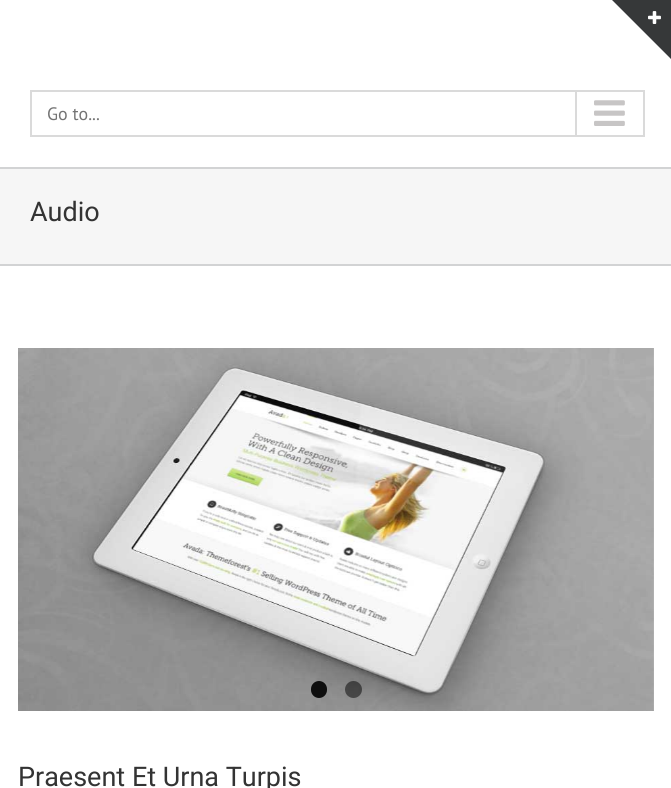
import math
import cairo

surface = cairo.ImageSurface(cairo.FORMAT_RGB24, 671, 788)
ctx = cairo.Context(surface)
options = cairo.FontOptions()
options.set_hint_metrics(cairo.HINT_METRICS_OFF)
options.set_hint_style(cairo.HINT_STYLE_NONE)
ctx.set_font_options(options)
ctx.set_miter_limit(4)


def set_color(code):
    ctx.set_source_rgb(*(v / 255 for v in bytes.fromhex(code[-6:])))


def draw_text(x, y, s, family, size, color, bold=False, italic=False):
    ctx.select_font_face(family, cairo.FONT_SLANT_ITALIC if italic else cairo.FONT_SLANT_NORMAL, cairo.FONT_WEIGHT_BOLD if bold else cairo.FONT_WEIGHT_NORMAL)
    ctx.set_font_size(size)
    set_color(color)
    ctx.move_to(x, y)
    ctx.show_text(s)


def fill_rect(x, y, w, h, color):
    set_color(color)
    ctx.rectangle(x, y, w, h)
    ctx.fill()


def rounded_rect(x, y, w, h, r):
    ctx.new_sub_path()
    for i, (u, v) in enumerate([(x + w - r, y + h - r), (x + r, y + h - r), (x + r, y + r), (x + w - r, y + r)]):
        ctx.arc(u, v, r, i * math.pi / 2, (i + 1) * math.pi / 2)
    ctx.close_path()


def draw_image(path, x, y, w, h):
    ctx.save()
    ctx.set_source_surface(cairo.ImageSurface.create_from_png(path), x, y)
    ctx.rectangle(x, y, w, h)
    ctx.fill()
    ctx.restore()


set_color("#ffffff")
ctx.paint()
set_color("#363839")
ctx.new_path()
ctx.move_to(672, 0)
ctx.line_to(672, 60)
ctx.line_to(612, 0)
ctx.close_path()
ctx.fill()
draw_image("assets/img1.png", 648, 11, 13, 13)
ctx.rectangle(31, 91, 613, 45)
set_color("#dadada")
ctx.stroke()
draw_text(47, 120, "Go to...", "PT Sans", 18, "#747474")
fill_rect(575, 92, 2, 43, "#dadada")
draw_image("assets/img2.png", 594, 100, 31, 26)
fill_rect(0, 169, 671, 95, "#f6f6f6")
fill_rect(0, 167, 671, 2, "#d2d3d4")
fill_rect(0, 264, 671, 2, "#d2d3d4")
draw_text(30, 221, "Audio", "Roboto", 27, "#333333")
draw_image("assets/img3.png", 18, 348, 636, 363)
ctx.set_source_rgba(0, 0, 0, 0.9)
rounded_rect(311, 681, 16, 17, 8)
ctx.fill()
ctx.set_source_rgba(0, 0, 0, 0.5)
ctx.arc(353.5, 689.5, 8.5, 0, 2 * math.pi)
ctx.fill()
draw_text(18, 786, "Praesent Et Urna Turpis", "Roboto", 27, "#333333")
surface.write_to_png("output.png")
